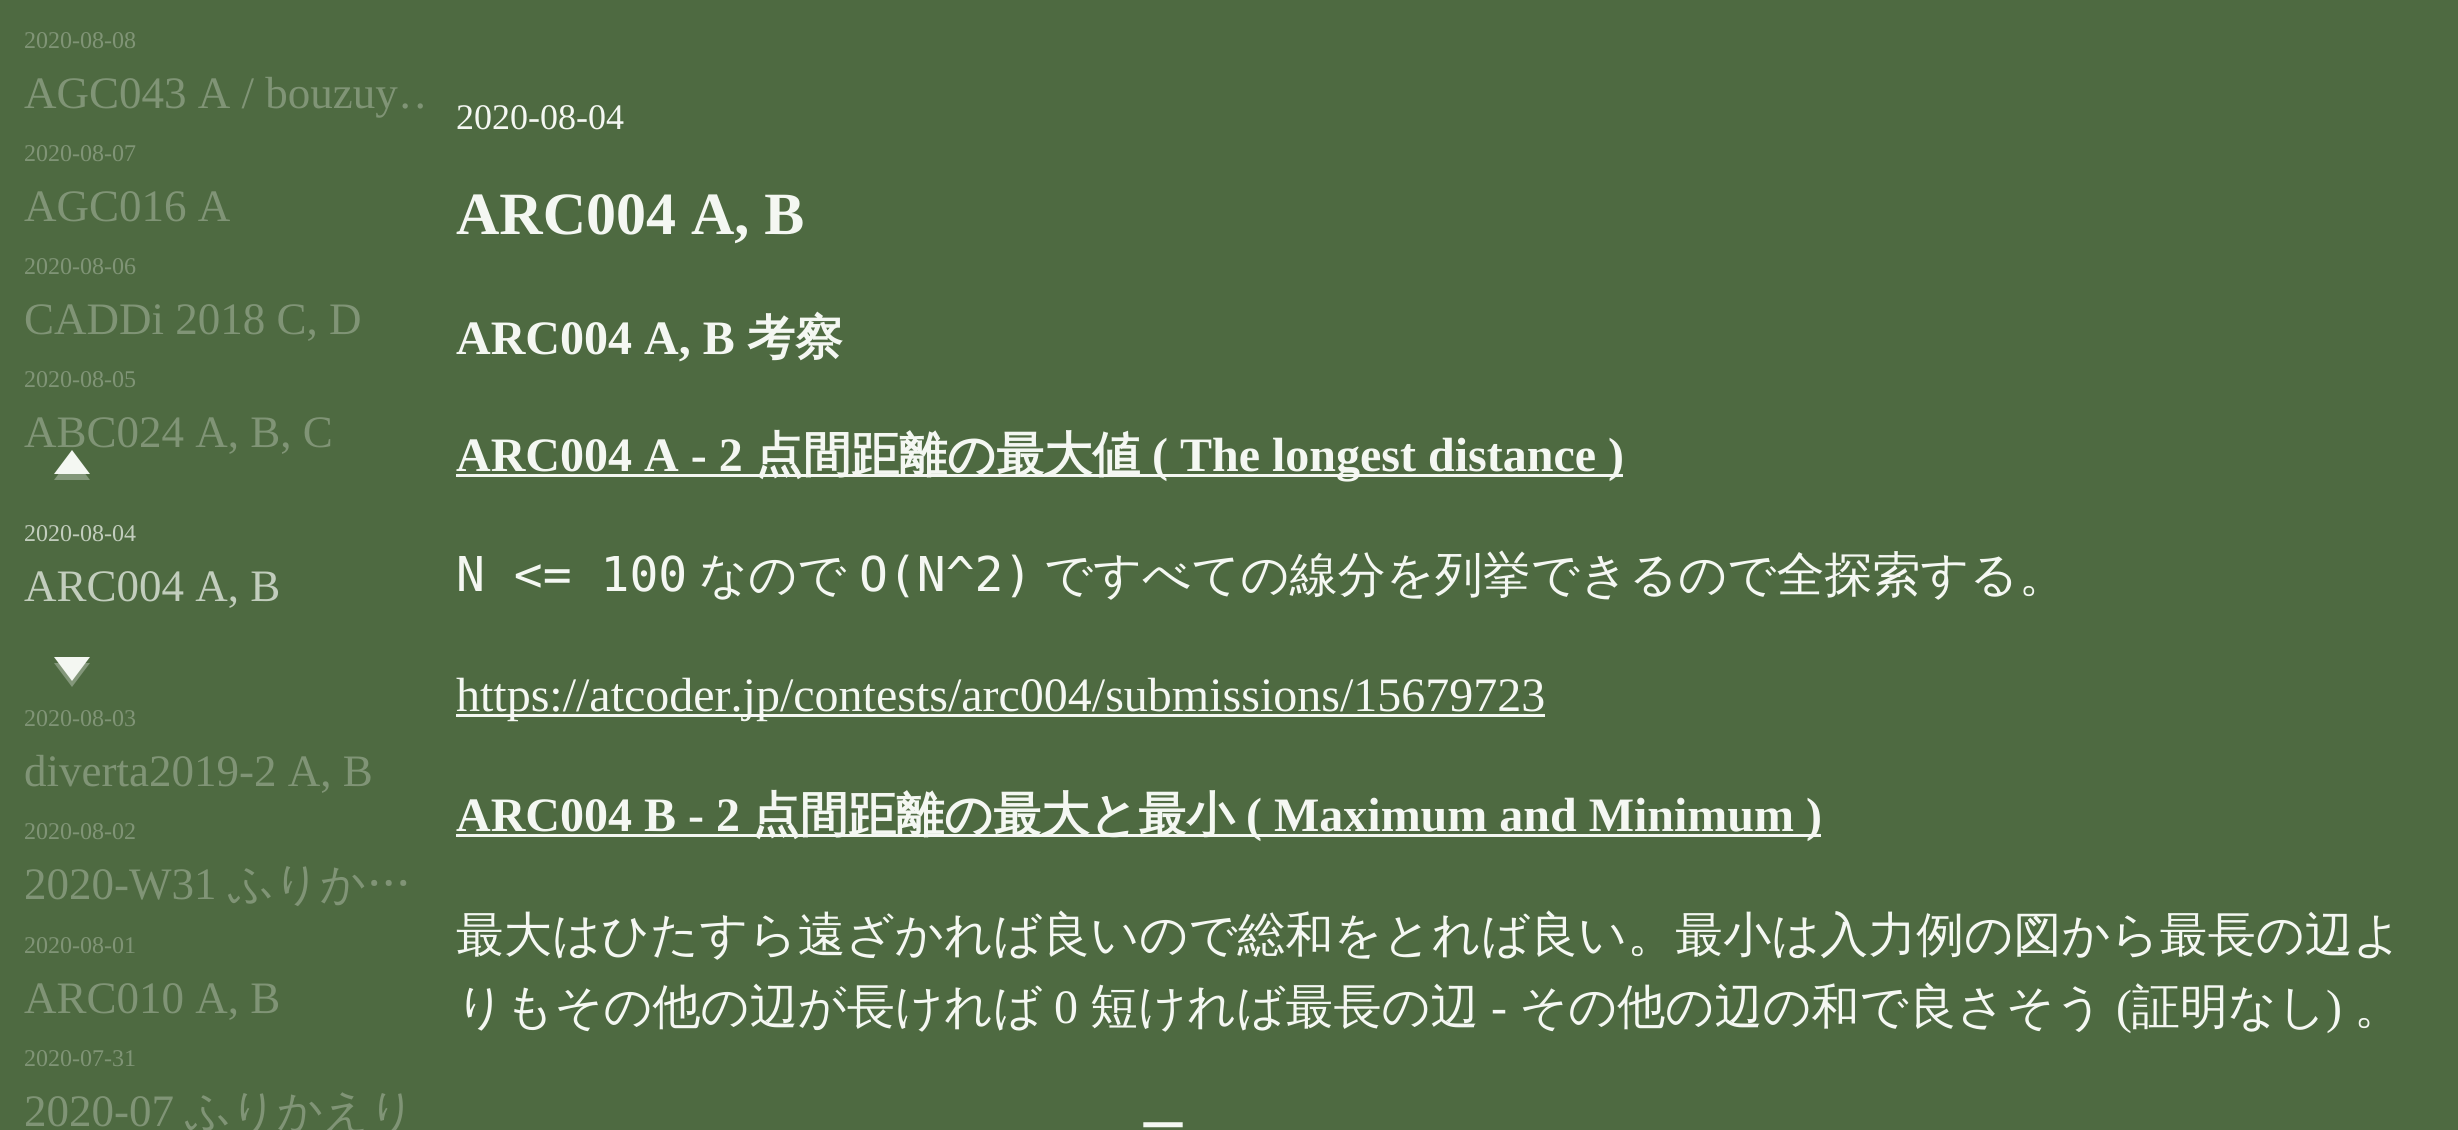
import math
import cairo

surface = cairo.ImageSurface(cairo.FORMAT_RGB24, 2458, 1130)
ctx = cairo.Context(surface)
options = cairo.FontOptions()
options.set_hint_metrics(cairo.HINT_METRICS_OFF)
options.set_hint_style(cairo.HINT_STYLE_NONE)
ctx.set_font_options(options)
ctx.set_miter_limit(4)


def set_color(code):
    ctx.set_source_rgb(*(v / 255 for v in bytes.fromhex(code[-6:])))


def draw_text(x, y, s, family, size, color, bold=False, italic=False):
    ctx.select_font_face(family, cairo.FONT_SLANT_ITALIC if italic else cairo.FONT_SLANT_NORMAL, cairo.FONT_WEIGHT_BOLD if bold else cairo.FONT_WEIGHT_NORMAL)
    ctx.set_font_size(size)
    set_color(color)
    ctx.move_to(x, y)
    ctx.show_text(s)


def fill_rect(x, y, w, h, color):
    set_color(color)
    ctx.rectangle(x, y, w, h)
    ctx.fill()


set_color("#4e6a41")
ctx.paint()
draw_text(24, 48, "2020-08-08", "Liberation Serif", 24, "#809476")
ctx.save()
ctx.rectangle(24, 60, 408, 60)
ctx.clip()
draw_text(24, 108, "AGC043 A / bouzuy…", "Liberation Serif", 45, "#809476")
ctx.restore()
draw_text(24, 161, "2020-08-07", "Liberation Serif", 24, "#809476")
draw_text(24, 221, "AGC016 A", "Liberation Serif", 45, "#809476")
draw_text(24, 274, "2020-08-06", "Liberation Serif", 24, "#809476")
draw_text(24, 334, "CADDi 2018 C, D", "Liberation Serif", 45, "#809476")
draw_text(24, 387, "2020-08-05", "Liberation Serif", 24, "#809476")
draw_text(24, 447, "ABC024 A, B, C", "Liberation Serif", 45, "#809476")
draw_text(24, 541, "2020-08-04", "Liberation Serif", 24, "#c2cdbd")
draw_text(24, 601, "ARC004 A, B", "Liberation Serif", 45, "#c2cdbd")
draw_text(24, 726, "2020-08-03", "Liberation Serif", 24, "#809476")
draw_text(24, 786, "diverta2019-2 A, B", "Liberation Serif", 45, "#809476")
draw_text(24, 839, "2020-08-02", "Liberation Serif", 24, "#809476")
draw_text(24, 899, "2020-W31", "Liberation Serif", 45, "#809476")
draw_text(228, 899, "ふりか…", "WenQuanYi Zen Hei Medium", 45, "#809476")
draw_text(24, 953, "2020-08-01", "Liberation Serif", 24, "#809476")
draw_text(24, 1013, "ARC010 A, B", "Liberation Serif", 45, "#809476")
draw_text(24, 1066, "2020-07-31", "Liberation Serif", 24, "#809476")
draw_text(24, 1126, "2020-07", "Liberation Serif", 45, "#809476")
draw_text(185, 1126, "ふりかえり", "WenQuanYi Zen Hei Medium", 45, "#809476")
draw_text(456, 129, "2020-08-04", "Liberation Serif", 36, "#f4f7f2")
draw_text(456, 234, "ARC004 A, B", "Liberation Serif", 60, "#f4f7f2", bold=True)
draw_text(456, 354, "ARC004 A, B", "Liberation Serif", 48, "#f4f7f2", bold=True)
draw_text(747, 354, "考察", "WenQuanYi Zen Hei", 48, "#f4f7f2", bold=True)
draw_text(456, 471, "ARC004 A - 2", "Liberation Serif", 48, "#f4f7f2", bold=True)
fill_rect(456, 474, 1167, 3, "#f4f7f2")
draw_text(755, 471, "点間距離の最大値", "WenQuanYi Zen Hei", 48, "#f4f7f2", bold=True)
draw_text(1152, 471, "( The longest distance )", "Liberation Serif", 48, "#f4f7f2", bold=True)
draw_text(456, 591, "N <= 100", "DejaVu Sans Mono", 48, "#f4f7f2")
draw_text(699, 591, "なので", "WenQuanYi Zen Hei Medium", 48, "#f4f7f2")
draw_text(859, 591, "O(N^2)", "DejaVu Sans Mono", 48, "#f4f7f2")
draw_text(1044, 591, "ですべての線分を列挙できるので全探索する。", "WenQuanYi Zen Hei Medium", 48, "#f4f7f2")
fill_rect(456, 714, 1089, 3, "#f4f7f2")
draw_text(456, 711, "https://atcoder.jp/contests/arc004/submissions/15679723", "Liberation Serif", 48, "#f4f7f2")
draw_text(456, 831, "ARC004 B - 2", "Liberation Serif", 48, "#f4f7f2", bold=True)
fill_rect(456, 834, 1365, 3, "#f4f7f2")
draw_text(752, 831, "点間距離の最大と最小", "WenQuanYi Zen Hei", 48, "#f4f7f2", bold=True)
draw_text(1246, 831, "( Maximum and Minimum )", "Liberation Serif", 48, "#f4f7f2", bold=True)
draw_text(456, 951, "最大はひたすら遠ざかれば良いので総和をとれば良い。最小は入力例の図から最長の辺よ", "WenQuanYi Zen Hei Medium", 48, "#f4f7f2")
draw_text(456, 1023, "りもその他の辺が長ければ", "WenQuanYi Zen Hei Medium", 48, "#f4f7f2")
draw_text(1054, 1023, "0", "Liberation Serif", 48, "#f4f7f2")
draw_text(1090, 1023, "短ければ最長の辺", "WenQuanYi Zen Hei Medium", 48, "#f4f7f2")
draw_text(1491, 1023, "-", "Liberation Serif", 48, "#f4f7f2")
draw_text(1519, 1023, "その他の辺の和で良さそう", "WenQuanYi Zen Hei Medium", 48, "#f4f7f2")
draw_text(2116, 1023, "(", "Liberation Serif", 48, "#f4f7f2")
draw_text(2132, 1023, "証明なし", "WenQuanYi Zen Hei Medium", 48, "#f4f7f2")
draw_text(2326, 1023, ")", "Liberation Serif", 48, "#f4f7f2")
draw_text(2354, 1023, "。", "WenQuanYi Zen Hei Medium", 48, "#f4f7f2")
draw_text(1139, 1143, "ー", "WenQuanYi Zen Hei Medium", 48, "#f4f7f2")
set_color("#83977a")
ctx.new_path()
ctx.move_to(90, 480)
ctx.line_to(54, 480)
ctx.line_to(72, 456)
ctx.close_path()
ctx.fill()
set_color("#f4f7f2")
ctx.new_path()
ctx.move_to(90, 474)
ctx.line_to(54, 474)
ctx.line_to(72, 450)
ctx.close_path()
ctx.fill()
set_color("#83977a")
ctx.new_path()
ctx.move_to(54, 663)
ctx.line_to(90, 663)
ctx.line_to(72, 687)
ctx.close_path()
ctx.fill()
set_color("#f4f7f2")
ctx.new_path()
ctx.move_to(54, 657)
ctx.line_to(90, 657)
ctx.line_to(72, 681)
ctx.close_path()
ctx.fill()
surface.write_to_png("output.png")
